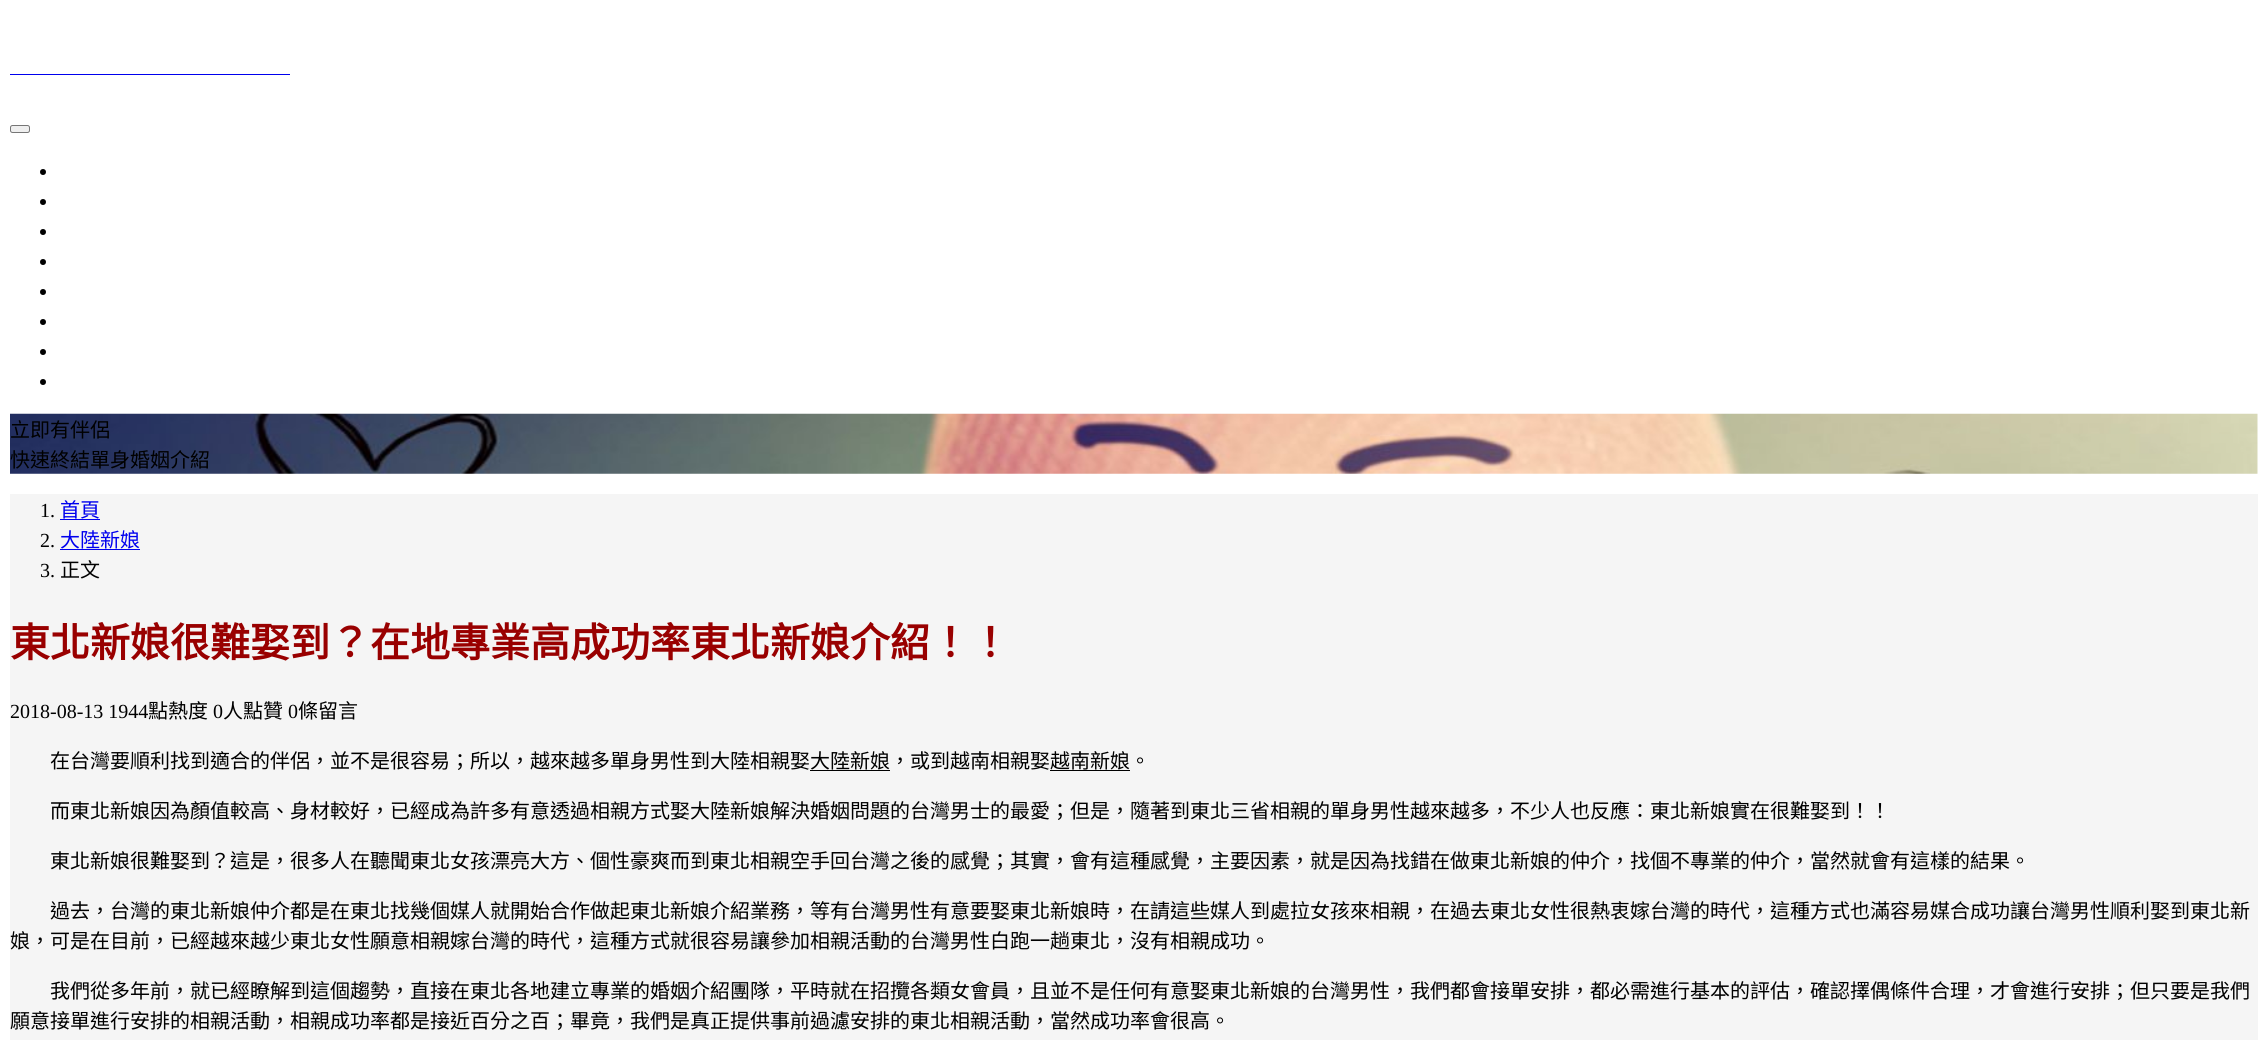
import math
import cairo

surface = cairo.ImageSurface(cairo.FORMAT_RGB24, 2267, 1040)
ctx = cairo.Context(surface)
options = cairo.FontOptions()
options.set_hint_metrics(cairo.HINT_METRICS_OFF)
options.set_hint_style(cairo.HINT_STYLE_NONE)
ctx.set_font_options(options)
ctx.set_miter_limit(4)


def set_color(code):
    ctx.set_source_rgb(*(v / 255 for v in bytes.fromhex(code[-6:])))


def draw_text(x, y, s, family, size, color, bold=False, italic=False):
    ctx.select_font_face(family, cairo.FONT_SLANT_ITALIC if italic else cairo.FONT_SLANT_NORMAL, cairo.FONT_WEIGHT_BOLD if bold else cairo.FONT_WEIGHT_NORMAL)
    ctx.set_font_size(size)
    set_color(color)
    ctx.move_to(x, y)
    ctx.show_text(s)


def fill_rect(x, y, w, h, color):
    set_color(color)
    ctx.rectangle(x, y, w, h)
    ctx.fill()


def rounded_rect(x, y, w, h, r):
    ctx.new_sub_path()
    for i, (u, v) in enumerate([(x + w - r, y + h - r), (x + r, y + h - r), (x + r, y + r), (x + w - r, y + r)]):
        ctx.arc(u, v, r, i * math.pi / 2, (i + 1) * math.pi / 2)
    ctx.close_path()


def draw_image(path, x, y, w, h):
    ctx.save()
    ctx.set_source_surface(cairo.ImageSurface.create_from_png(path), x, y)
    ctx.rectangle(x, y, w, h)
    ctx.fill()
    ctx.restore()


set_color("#ffffff")
ctx.paint()
fill_rect(10, 74, 280, 1, "#0000ee")
set_color("#efefef")
rounded_rect(10.5, 125.5, 19, 7, 2)
ctx.fill_preserve()
set_color("#767676")
ctx.set_line_width(1)
ctx.stroke()
set_color("#000000")
ctx.arc(43, 172, 3, 0, 2 * math.pi)
ctx.fill()
ctx.arc(43, 202, 3, 0, 2 * math.pi)
ctx.fill()
ctx.arc(43, 232, 3, 0, 2 * math.pi)
ctx.fill()
ctx.arc(43, 262, 3, 0, 2 * math.pi)
ctx.fill()
ctx.arc(43, 292, 3, 0, 2 * math.pi)
ctx.fill()
ctx.arc(43, 322, 3, 0, 2 * math.pi)
ctx.fill()
ctx.arc(43, 352, 3, 0, 2 * math.pi)
ctx.fill()
ctx.arc(43, 382, 3, 0, 2 * math.pi)
ctx.fill()
draw_image("assets/img1.png", 10, 413, 2248, 61)
draw_text(10, 437, "立即有伴侶", "Noto Sans CJK TC", 20, "#000000")
draw_text(10, 467, "快速終結單身婚姻介紹", "Noto Sans CJK TC", 20, "#000000")
fill_rect(10, 494, 2248, 546, "#f5f5f5")
draw_text(40, 517, "1.", "Liberation Serif", 20, "#000000")
draw_text(60, 517, "首頁", "Noto Sans CJK TC", 20, "#0000ee")
fill_rect(60, 519, 40, 1, "#0000ee")
draw_text(40, 547, "2.", "Liberation Serif", 20, "#000000")
draw_text(60, 547, "大陸新娘", "Noto Sans CJK TC", 20, "#0000ee")
fill_rect(60, 549, 80, 1, "#0000ee")
draw_text(40, 577, "3.", "Liberation Serif", 20, "#000000")
draw_text(60, 577, "正文", "Noto Sans CJK TC", 20, "#000000")
draw_text(10, 657, "東北新娘很難娶到？在地專業高成功率東北新娘介紹！！", "Noto Sans CJK TC", 40, "#990000", bold=True)
draw_text(10, 718, "2018-08-13 1944", "Liberation Serif", 20, "#000000")
draw_text(148, 718, "點熱度", "Noto Sans CJK TC", 20, "#000000")
draw_text(213, 718, "0", "Liberation Serif", 20, "#000000")
draw_text(223, 718, "人點贊", "Noto Sans CJK TC", 20, "#000000")
draw_text(288, 718, "0", "Liberation Serif", 20, "#000000")
draw_text(298, 718, "條留言", "Noto Sans CJK TC", 20, "#000000")
draw_text(50, 768, "在台灣要順利找到適合的伴侶，並不是很容易；所以，越來越多單身男性到大陸相親娶大陸新娘，或到越南相親娶越南新娘。", "Noto Sans CJK TC", 20, "#000000")
fill_rect(810, 770, 80, 1, "#000000")
fill_rect(1050, 770, 80, 1, "#000000")
draw_text(50, 818, "而東北新娘因為顏值較高、身材較好，已經成為許多有意透過相親方式娶大陸新娘解決婚姻問題的台灣男士的最愛；但是，隨著到東北三省相親的單身男性越來越多，不少人也反應：東北新娘實在很難娶到！！", "Noto Sans CJK TC", 20, "#000000")
draw_text(50, 868, "東北新娘很難娶到？這是，很多人在聽聞東北女孩漂亮大方、個性豪爽而到東北相親空手回台灣之後的感覺；其實，會有這種感覺，主要因素，就是因為找錯在做東北新娘的仲介，找個不專業的仲介，當然就會有這樣的結果。", "Noto Sans CJK TC", 20, "#000000")
draw_text(50, 918, "過去，台灣的東北新娘仲介都是在東北找幾個媒人就開始合作做起東北新娘介紹業務，等有台灣男性有意要娶東北新娘時，在請這些媒人到處拉女孩來相親，在過去東北女性很熱衷嫁台灣的時代，這種方式也滿容易媒合成功讓台灣男性順利娶到東北新", "Noto Sans CJK TC", 20, "#000000")
draw_text(10, 948, "娘，可是在目前，已經越來越少東北女性願意相親嫁台灣的時代，這種方式就很容易讓參加相親活動的台灣男性白跑一趟東北，沒有相親成功。", "Noto Sans CJK TC", 20, "#000000")
draw_text(50, 998, "我們從多年前，就已經瞭解到這個趨勢，直接在東北各地建立專業的婚姻介紹團隊，平時就在招攬各類女會員，且並不是任何有意娶東北新娘的台灣男性，我們都會接單安排，都必需進行基本的評估，確認擇偶條件合理，才會進行安排；但只要是我們", "Noto Sans CJK TC", 20, "#000000")
draw_text(10, 1028, "願意接單進行安排的相親活動，相親成功率都是接近百分之百；畢竟，我們是真正提供事前過濾安排的東北相親活動，當然成功率會很高。", "Noto Sans CJK TC", 20, "#000000")
surface.write_to_png("output.png")
